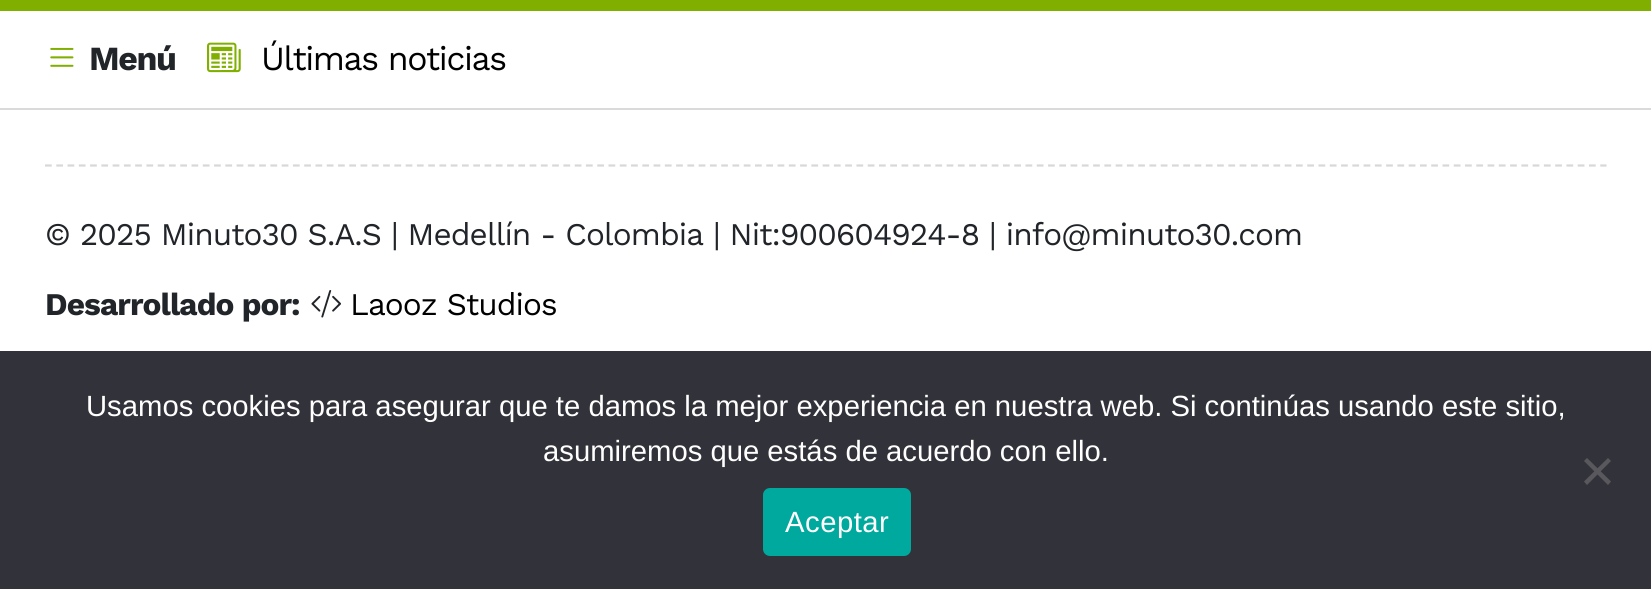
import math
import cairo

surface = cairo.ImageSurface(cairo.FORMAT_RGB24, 1651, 589)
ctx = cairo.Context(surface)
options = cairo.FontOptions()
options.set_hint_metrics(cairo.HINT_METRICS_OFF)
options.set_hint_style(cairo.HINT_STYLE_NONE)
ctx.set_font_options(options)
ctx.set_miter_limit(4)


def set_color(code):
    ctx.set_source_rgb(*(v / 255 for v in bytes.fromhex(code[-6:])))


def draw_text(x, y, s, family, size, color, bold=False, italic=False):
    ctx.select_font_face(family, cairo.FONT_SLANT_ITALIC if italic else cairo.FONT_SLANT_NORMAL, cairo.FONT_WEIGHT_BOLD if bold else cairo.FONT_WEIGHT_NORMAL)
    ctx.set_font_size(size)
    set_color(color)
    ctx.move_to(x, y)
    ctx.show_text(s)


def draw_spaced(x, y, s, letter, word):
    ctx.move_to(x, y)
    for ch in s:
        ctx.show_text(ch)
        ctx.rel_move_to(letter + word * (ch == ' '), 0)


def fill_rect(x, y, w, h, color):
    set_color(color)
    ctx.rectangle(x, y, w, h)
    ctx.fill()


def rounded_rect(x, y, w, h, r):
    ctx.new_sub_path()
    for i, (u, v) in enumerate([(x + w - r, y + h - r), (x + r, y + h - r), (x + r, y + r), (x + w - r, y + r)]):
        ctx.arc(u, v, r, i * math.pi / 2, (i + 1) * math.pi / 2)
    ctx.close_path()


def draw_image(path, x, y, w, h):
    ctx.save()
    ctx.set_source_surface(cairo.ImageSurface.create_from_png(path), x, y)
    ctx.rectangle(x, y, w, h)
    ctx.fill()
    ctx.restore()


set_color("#ffffff")
ctx.paint()
fill_rect(0, 0, 1651, 11, "#80af00")
fill_rect(0, 108, 1651, 2, "#dadada")
draw_image("assets/img1.png", 50, 47, 24, 20)
ctx.select_font_face("Work Sans", cairo.FONT_SLANT_NORMAL, cairo.FONT_WEIGHT_BOLD)
ctx.set_font_size(33.75)
set_color("#212529")
draw_spaced(89, 70, "Menú", -1.4, 0)
draw_image("assets/img2.png", 207, 42, 34, 31)
ctx.select_font_face("Work Sans")
set_color("#000000")
draw_spaced(261, 70, "Últimas noticias", -1.4, 0)
ctx.new_path()
ctx.move_to(45, 165.5)
ctx.line_to(1606.5, 165.5)
set_color("#d8d8d8")
ctx.set_line_width(2.2)
ctx.set_dash([6.75, 4.52])
ctx.stroke()
ctx.set_font_size(31.5)
set_color("#212529")
draw_spaced(45, 245, "© 2025 Minuto30 S.A.S | Medellín - Colombia | Nit:900604924-8 | info@minuto30.com", -0.9, 0)
ctx.select_font_face("Work Sans", cairo.FONT_SLANT_NORMAL, cairo.FONT_WEIGHT_BOLD)
draw_spaced(45, 315, "Desarrollado por:", -0.9, 0)
draw_image("assets/img3.png", 311, 290, 30, 28)
ctx.select_font_face("Work Sans")
set_color("#000000")
draw_spaced(350, 315, "Laooz Studios", -0.9, 0)
fill_rect(0, 351, 1651, 238, "#32323a")
draw_text(86, 416, "Usamos cookies para asegurar que te damos la mejor experiencia en nuestra web. Si continúas usando este sitio,", "Liberation Sans", 29.25, "#ffffff")
draw_text(543, 461, "asumiremos que estás de acuerdo con ello.", "Liberation Sans", 29.25, "#ffffff")
set_color("#59595d")
ctx.new_path()
ctx.move_to(1608, 458)
ctx.line_to(1611, 461)
ctx.line_to(1587, 485)
ctx.line_to(1584, 481.5)
ctx.close_path()
ctx.fill()
ctx.new_path()
ctx.move_to(1584, 461)
ctx.line_to(1587, 458)
ctx.line_to(1611, 481.5)
ctx.line_to(1608, 485)
ctx.close_path()
ctx.fill()
set_color("#00a99d")
rounded_rect(763, 488, 148, 68, 7)
ctx.fill()
set_color("#ffffff")
draw_spaced(785, 532, "Aceptar", 0.5, 0)
surface.write_to_png("output.png")
